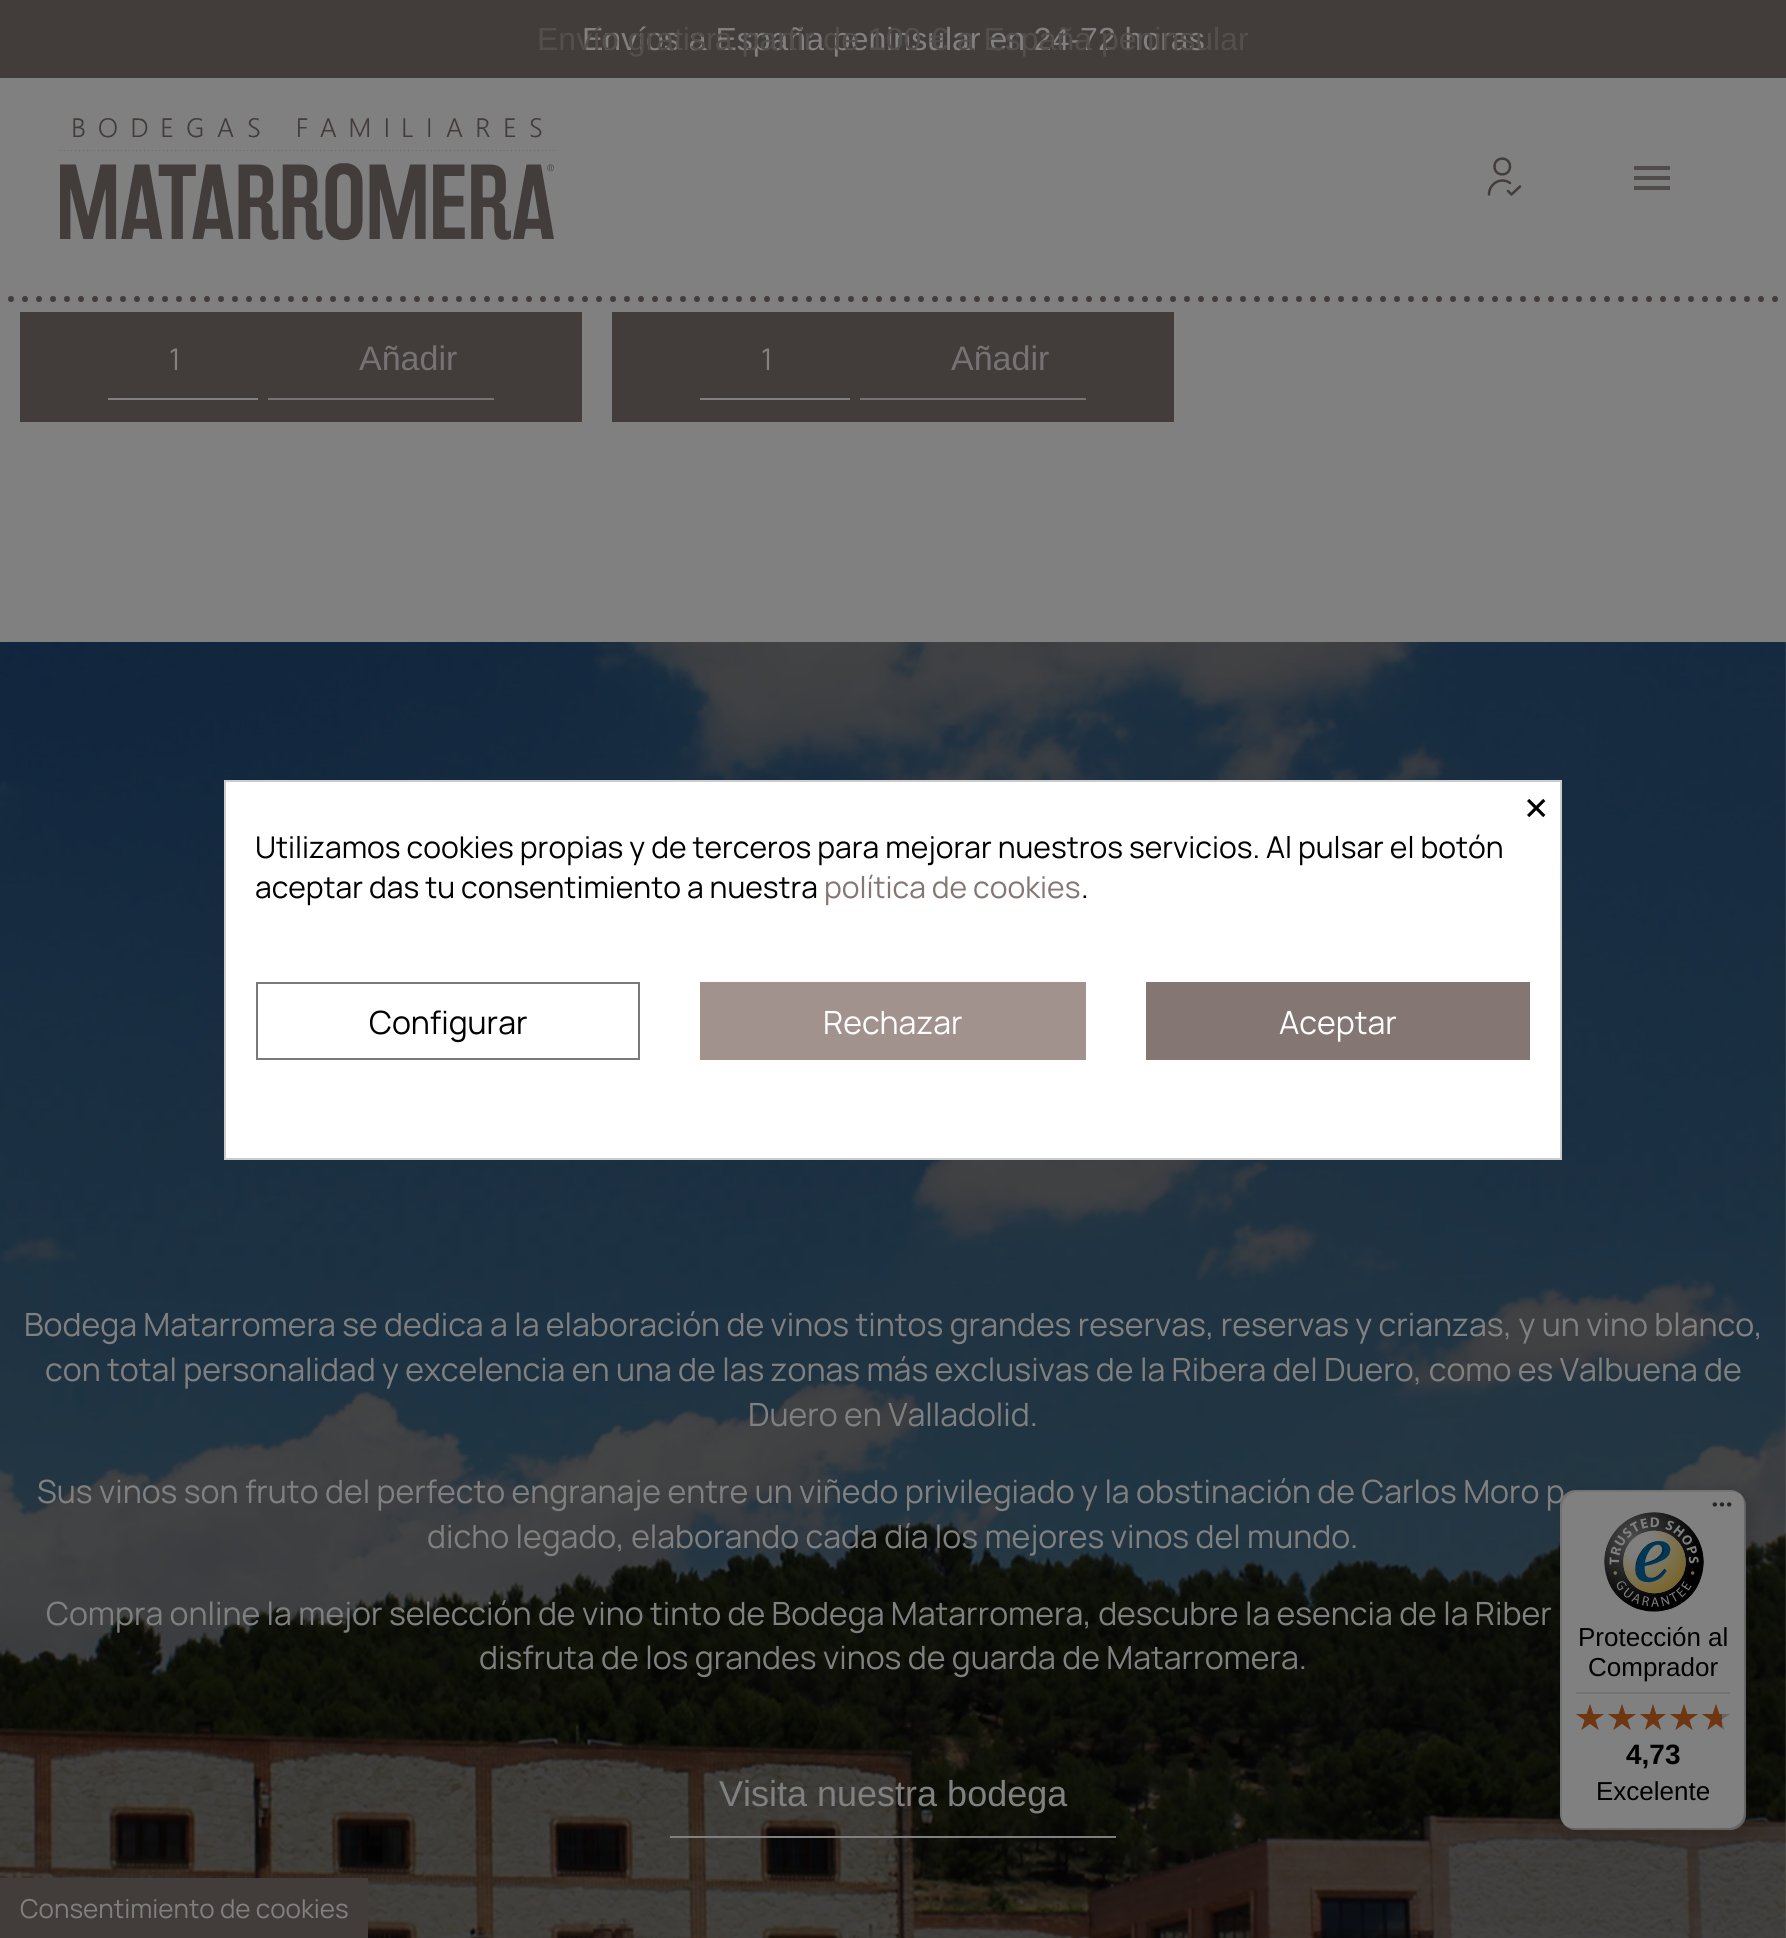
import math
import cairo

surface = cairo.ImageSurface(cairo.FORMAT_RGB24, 1786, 1938)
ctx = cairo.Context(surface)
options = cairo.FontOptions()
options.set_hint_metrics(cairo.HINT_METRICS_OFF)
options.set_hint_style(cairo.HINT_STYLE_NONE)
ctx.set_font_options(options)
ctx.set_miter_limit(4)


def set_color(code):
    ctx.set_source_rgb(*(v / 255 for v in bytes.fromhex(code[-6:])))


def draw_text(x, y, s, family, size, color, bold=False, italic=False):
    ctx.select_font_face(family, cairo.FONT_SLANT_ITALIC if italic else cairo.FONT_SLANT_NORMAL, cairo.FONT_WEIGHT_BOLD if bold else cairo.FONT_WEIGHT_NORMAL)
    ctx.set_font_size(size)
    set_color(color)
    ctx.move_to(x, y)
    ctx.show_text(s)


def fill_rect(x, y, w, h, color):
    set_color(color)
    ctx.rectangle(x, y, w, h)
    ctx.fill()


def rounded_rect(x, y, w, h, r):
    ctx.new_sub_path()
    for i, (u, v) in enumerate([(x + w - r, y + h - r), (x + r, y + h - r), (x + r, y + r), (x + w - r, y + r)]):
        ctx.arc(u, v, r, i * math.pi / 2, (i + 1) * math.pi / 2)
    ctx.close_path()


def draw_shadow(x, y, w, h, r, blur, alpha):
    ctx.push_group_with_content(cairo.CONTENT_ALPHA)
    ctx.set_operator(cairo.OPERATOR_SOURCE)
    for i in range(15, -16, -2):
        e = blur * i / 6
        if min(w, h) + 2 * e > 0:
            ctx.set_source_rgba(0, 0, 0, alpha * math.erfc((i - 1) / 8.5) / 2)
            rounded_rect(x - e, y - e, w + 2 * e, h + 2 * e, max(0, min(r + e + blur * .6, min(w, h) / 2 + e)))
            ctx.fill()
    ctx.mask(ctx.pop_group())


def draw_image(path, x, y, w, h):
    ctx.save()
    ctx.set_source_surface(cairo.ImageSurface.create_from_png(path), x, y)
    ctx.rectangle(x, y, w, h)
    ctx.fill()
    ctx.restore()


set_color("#808080")
ctx.paint()
fill_rect(0, 0, 1786, 78, "#423c3a")
draw_text(582, 50, "Envíos a España peninsular en 24-72 horas", "Liberation Sans", 32, "#808080")
draw_text(537, 50, "Envío gratis a partir de 100 € a España peninsular", "Liberation Sans", 32, "#534f4d")
draw_text(706, 50, "r", "Liberation Sans", 32, "#534f4d")
draw_image("assets/img1.png", 60, 118, 494, 123)
ctx.new_path()
ctx.move_to(1508, 191)
ctx.line_to(1511.5, 194.5)
ctx.line_to(1520, 186.5)
ctx.move_to(1489, 194.5)
ctx.curve_to(1489, 183.5, 1501, 176.5, 1510, 183)
ctx.move_to(1510, 166.5)
ctx.curve_to(1510, 177, 1494.5, 177, 1494.5, 166.5)
ctx.curve_to(1494.5, 156, 1510, 156, 1510, 166.5)
ctx.close_path()
set_color("#423c3a")
ctx.set_line_width(2.5)
ctx.set_line_cap(cairo.LINE_CAP_ROUND)
ctx.set_line_join(cairo.LINE_JOIN_ROUND)
ctx.stroke()
fill_rect(1634, 166, 36, 4, "#4f4c4b")
fill_rect(1634, 176, 36, 4, "#4f4c4b")
fill_rect(1634, 186, 36, 4, "#4f4c4b")
draw_image("assets/img2.png", 8, 296, 1770, 6)
fill_rect(20, 312, 562, 110, "#423c3a")
fill_rect(108, 398, 150, 2, "#808080")
draw_text(169, 370, "1", "Manrope", 30, "#808080")
fill_rect(268, 398, 226, 2, "#757373")
draw_text(359, 370, "Añadir", "Liberation Sans", 34, "#757373")
fill_rect(612, 312, 562, 110, "#423c3a")
fill_rect(700, 398, 150, 2, "#808080")
draw_text(761, 370, "1", "Manrope", 30, "#808080")
fill_rect(860, 398, 226, 2, "#757373")
draw_text(951, 370, "Añadir", "Liberation Sans", 34, "#757373")
draw_image("assets/img3.png", 0, 642, 1786, 1296)
draw_text(24, 1336, "Bodega Matarromera se dedica a la elaboración de vinos tintos grandes reservas, reservas y crianzas, y un vino blanco,", "Manrope", 32, "#808080")
draw_text(45, 1381, "con total personalidad y excelencia en una de las zonas más exclusivas de la Ribera del Duero, como es Valbuena de", "Manrope", 32, "#808080")
draw_text(748, 1426, "Duero en Valladolid.", "Manrope", 32, "#808080")
draw_text(37, 1503, "Sus vinos son fruto del perfecto engranaje entre un viñedo privilegiado y la obstinación de Carlos Moro p", "Manrope", 32, "#808080")
draw_text(427, 1548, "dicho legado, elaborando cada día los mejores vinos del mundo.", "Manrope", 32, "#808080")
draw_text(46, 1625, "Compra online la mejor selección de vino tinto de Bodega Matarromera, descubre la esencia de la Riber", "Manrope", 32, "#808080")
draw_text(479, 1669, "disfruta de los grandes vinos de guarda de Matarromera.", "Manrope", 32, "#808080")
fill_rect(670, 1836, 446, 2, "#808080")
draw_text(719, 1806, "Visita nuestra bodega", "Liberation Sans", 36, "#808080")
set_color("#ffffff")
ctx.rectangle(225, 781, 1336, 378)
ctx.fill_preserve()
set_color("#cccccc")
ctx.set_line_width(2)
ctx.set_line_cap(cairo.LINE_CAP_BUTT)
ctx.set_line_join(cairo.LINE_JOIN_MITER)
ctx.stroke()
draw_text(1524, 826, "×", "Manrope", 50, "#000000")
draw_text(255, 858, "Utilizamos cookies propias y de terceros para mejorar nuestros servicios. Al pulsar el botón", "Manrope", 30, "#000000")
draw_text(255, 898, "aceptar das tu consentimiento a nuestra", "Manrope", 30, "#000000")
draw_text(824, 898, "política de cookies", "Manrope", 30, "#847773")
draw_text(1081, 898, ".", "Manrope", 30, "#000000")
ctx.rectangle(257, 983, 382, 76)
set_color("#7a7a7a")
ctx.stroke()
draw_text(369, 1034, "Configurar", "Manrope", 32, "#000000")
fill_rect(700, 982, 386, 78, "#a1928d")
draw_text(823, 1034, "Rechazar", "Manrope", 32, "#ffffff")
fill_rect(1146, 982, 384, 78, "#847773")
draw_text(1279, 1034, "Aceptar", "Manrope", 32, "#ffffff")
set_color("#000000")
draw_shadow(1566, 1496, 186, 340, 16, 8, 0.15)
set_color("#808080")
rounded_rect(1560, 1490, 186, 340, 16)
ctx.fill()
ctx.set_source_rgba(0, 0, 0, 0.1)
ctx.new_path()
ctx.move_to(1578, 1492)
ctx.line_to(1732, 1492)
ctx.curve_to(1736, 1492, 1739, 1493, 1742, 1495)
ctx.curve_to(1739, 1492, 1735, 1490, 1730, 1490)
ctx.line_to(1576, 1490)
ctx.curve_to(1567, 1490, 1560, 1497, 1560, 1506)
ctx.line_to(1560, 1814)
ctx.curve_to(1560, 1819, 1562, 1823, 1565, 1826)
ctx.curve_to(1563, 1823, 1562, 1820, 1562, 1816)
ctx.line_to(1562, 1508)
ctx.curve_to(1562, 1499, 1569, 1492, 1578, 1492)
ctx.close_path()
ctx.fill()
ctx.set_source_rgba(0, 0, 0, 0.2)
ctx.new_path()
ctx.move_to(1564, 1825)
ctx.curve_to(1567, 1828, 1571, 1830, 1576, 1830)
ctx.line_to(1730, 1830)
ctx.curve_to(1739, 1830, 1746, 1823, 1746, 1814)
ctx.line_to(1746, 1506)
ctx.curve_to(1746, 1501, 1744, 1497, 1741, 1494)
ctx.curve_to(1743, 1497, 1744, 1500, 1744, 1504)
ctx.line_to(1744, 1812)
ctx.curve_to(1744, 1821, 1737, 1828, 1728, 1828)
ctx.line_to(1574, 1828)
ctx.curve_to(1570, 1828, 1567, 1827, 1564, 1825)
ctx.close_path()
ctx.fill()
ctx.set_source_rgba(0.098, 0.098, 0.098, 0.2)
ctx.new_path()
ctx.move_to(1565, 1825)
ctx.curve_to(1568, 1828, 1572, 1830, 1576, 1830)
ctx.line_to(1730, 1830)
ctx.curve_to(1739, 1830, 1746, 1823, 1746, 1814)
ctx.line_to(1746, 1506)
ctx.curve_to(1746, 1502, 1744, 1498, 1741, 1495)
ctx.curve_to(1744, 1498, 1745, 1501, 1745, 1505)
ctx.line_to(1745, 1813)
ctx.curve_to(1745, 1822, 1738, 1829, 1729, 1829)
ctx.line_to(1575, 1829)
ctx.curve_to(1571, 1829, 1568, 1828, 1565, 1825)
ctx.close_path()
ctx.fill()
ctx.set_source_rgba(0.502, 0.502, 0.502, 0.3)
ctx.new_path()
ctx.move_to(1565, 1825)
ctx.curve_to(1568, 1828, 1572, 1830, 1576, 1830)
ctx.line_to(1730, 1830)
ctx.curve_to(1739, 1830, 1746, 1823, 1746, 1814)
ctx.line_to(1746, 1506)
ctx.curve_to(1746, 1502, 1744, 1498, 1741, 1495)
ctx.curve_to(1744, 1498, 1745, 1501, 1745, 1505)
ctx.line_to(1745, 1813)
ctx.curve_to(1745, 1822, 1738, 1829, 1729, 1829)
ctx.line_to(1575, 1829)
ctx.curve_to(1571, 1829, 1568, 1828, 1565, 1825)
ctx.close_path()
ctx.fill()
draw_image("assets/img4.png", 1712, 1502, 20, 5)
draw_image("assets/img5.png", 1604, 1512, 100, 100)
draw_text(1578, 1646, "Protección al", "Liberation Sans", 26, "#000000")
draw_text(1588, 1676, "Comprador", "Liberation Sans", 26, "#000000")
fill_rect(1576, 1692, 154, 2, "#737373")
draw_image("assets/img6.png", 1576, 1704, 28, 26)
draw_image("assets/img6.png", 1608, 1704, 28, 26)
draw_image("assets/img7.png", 1640, 1704, 26, 26)
draw_image("assets/img6.png", 1670, 1704, 28, 26)
draw_image("assets/img6.png", 1702, 1704, 28, 26)
draw_image("assets/img8.png", 1576, 1704, 28, 26)
draw_image("assets/img8.png", 1608, 1704, 28, 26)
draw_image("assets/img9.png", 1640, 1704, 26, 26)
draw_image("assets/img8.png", 1670, 1704, 28, 26)
draw_image("assets/img10.png", 1702, 1704, 20, 26)
draw_text(1626, 1764, "4,73", "Liberation Sans", 28, "#000000", bold=True)
draw_text(1596, 1800, "Excelente", "Liberation Sans", 26, "#000000")
fill_rect(0, 1878, 368, 60, "#423c3a")
draw_text(20, 1918, "Consentimiento de cookies", "Manrope", 26, "#808080")
surface.write_to_png("output.png")
